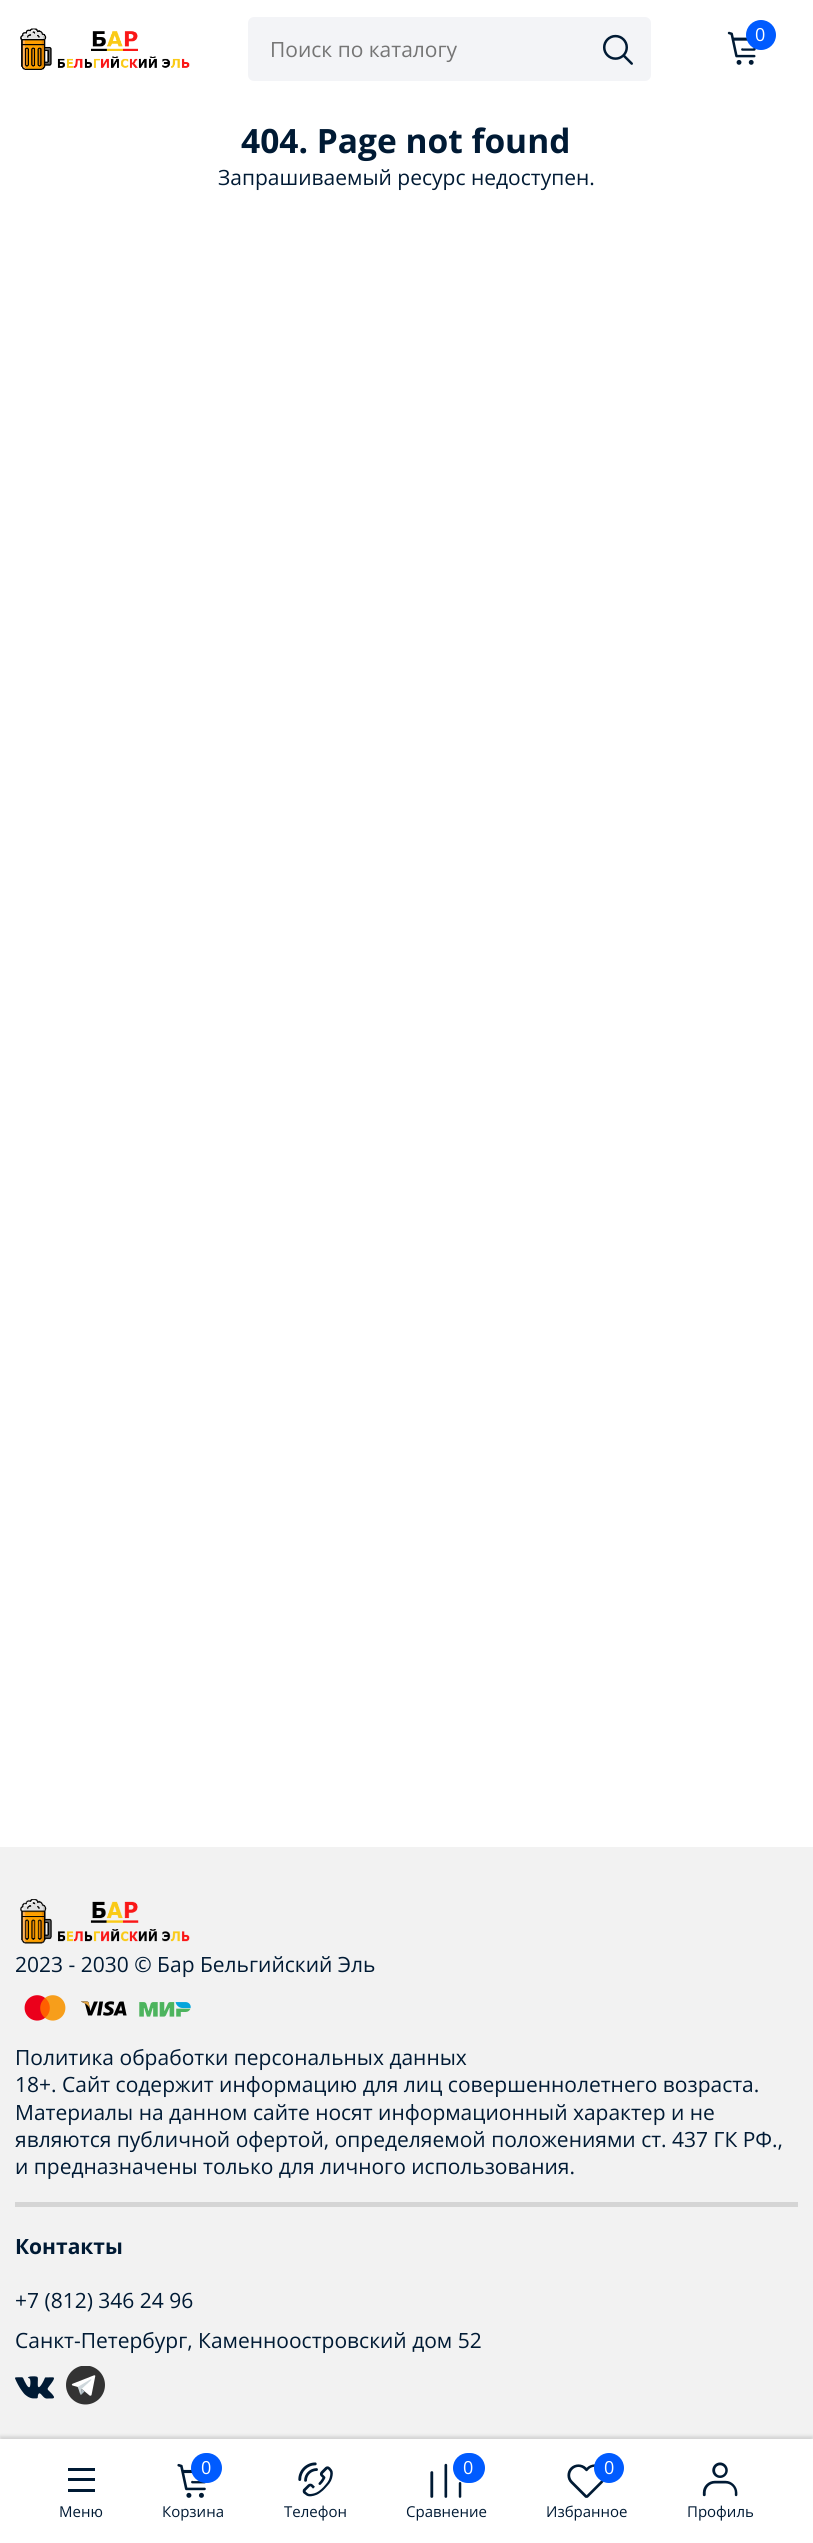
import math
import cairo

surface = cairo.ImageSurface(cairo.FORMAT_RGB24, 813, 2543)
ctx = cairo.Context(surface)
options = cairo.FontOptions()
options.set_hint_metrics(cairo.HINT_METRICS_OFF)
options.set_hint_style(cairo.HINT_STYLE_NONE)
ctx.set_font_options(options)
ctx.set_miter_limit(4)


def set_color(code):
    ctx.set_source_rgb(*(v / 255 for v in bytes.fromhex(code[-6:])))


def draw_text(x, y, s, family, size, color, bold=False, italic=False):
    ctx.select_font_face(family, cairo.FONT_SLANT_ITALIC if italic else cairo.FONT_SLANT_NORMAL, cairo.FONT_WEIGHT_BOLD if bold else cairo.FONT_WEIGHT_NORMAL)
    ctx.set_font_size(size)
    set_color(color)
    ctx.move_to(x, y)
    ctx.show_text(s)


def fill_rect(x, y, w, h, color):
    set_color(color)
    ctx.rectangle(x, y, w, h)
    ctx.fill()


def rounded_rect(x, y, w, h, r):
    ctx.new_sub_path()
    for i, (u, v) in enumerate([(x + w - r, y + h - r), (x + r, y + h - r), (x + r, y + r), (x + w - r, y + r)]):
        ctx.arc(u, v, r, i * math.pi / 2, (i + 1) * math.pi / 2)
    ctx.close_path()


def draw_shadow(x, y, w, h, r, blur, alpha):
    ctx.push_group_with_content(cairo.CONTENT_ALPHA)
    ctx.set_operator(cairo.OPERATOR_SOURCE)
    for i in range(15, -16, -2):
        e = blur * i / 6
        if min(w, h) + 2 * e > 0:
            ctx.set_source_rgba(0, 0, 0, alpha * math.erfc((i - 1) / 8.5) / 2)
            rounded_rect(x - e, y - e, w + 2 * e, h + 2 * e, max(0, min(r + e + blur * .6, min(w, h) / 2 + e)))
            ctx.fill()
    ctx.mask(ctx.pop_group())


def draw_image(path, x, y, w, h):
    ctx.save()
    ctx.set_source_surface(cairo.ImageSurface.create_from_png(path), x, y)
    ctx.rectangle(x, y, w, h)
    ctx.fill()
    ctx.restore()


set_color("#ffffff")
ctx.paint()
draw_image("assets/img1.png", 20, 28, 170, 42)
draw_image("assets/img2.png", 727, 31, 29, 34)
set_color("#005bff")
ctx.arc(761, 35, 15, 0, 2 * math.pi)
ctx.fill()
draw_text(755, 41, "0", "Open Sans", 18, "#ffffff")
set_color("#f3f4f7")
rounded_rect(249, 18, 401, 62, 5)
ctx.fill_preserve()
ctx.stroke()
draw_text(270, 57, "Поиск по каталогу", "Open Sans", 21, "#757575")
draw_image("assets/img3.png", 603, 34, 30, 31)
draw_text(241, 153, "404. Page not found", "Open Sans", 33.5, "#001a34", bold=True)
draw_text(218, 185, "Запрашиваемый ресурс недоступен.", "Open Sans", 21, "#001a34")
fill_rect(0, 1847, 813, 592, "#f2f2f2")
fill_rect(15, 2202, 783, 5, "#d5d5d5")
draw_image("assets/img4.png", 20, 1899, 170, 45)
draw_text(15, 1972, "2023 - 2030 © Бар Бельгийский Эль", "Open Sans", 21, "#001a34")
draw_image("assets/img5.png", 24, 1995, 42, 26)
draw_image("assets/img6.png", 81, 2001, 46, 15)
draw_image("assets/img7.png", 139, 2002, 52, 15)
draw_text(15, 2065, "Политика обработки персональных данных", "Open Sans", 21, "#001a34")
draw_text(15, 2092, "18+. Сайт содержит информацию для лиц совершеннолетнего возраста.", "Open Sans", 21, "#001a34")
draw_text(15, 2120, "Материалы на данном сайте носят информационный характер и не", "Open Sans", 21, "#001a34")
draw_text(15, 2147, "являются публичной офертой, определяемой положениями ст. 437 ГК РФ.,", "Open Sans", 21, "#001a34")
draw_text(15, 2174, "и предназначены только для личного использования.", "Open Sans", 21, "#001a34")
draw_text(15, 2254, "Контакты", "Open Sans", 21, "#001a34", bold=True)
draw_text(15, 2308, "+7 (812) 346 24 96", "Open Sans", 21, "#001a34")
draw_text(15, 2348, "Санкт-Петербург, Каменноостровский дом 52", "Open Sans", 21, "#001a34")
draw_image("assets/img8.png", 15, 2376, 39, 23)
draw_image("assets/img9.png", 66, 2366, 39, 39)
set_color("#000000")
draw_shadow(0, 2436, 813, 105, 0, 1.5, 0.12)
fill_rect(0, 2439, 813, 104, "#ffffff")
fill_rect(68, 2468, 27, 3, "#001a34")
fill_rect(68, 2478, 27, 3, "#001a34")
fill_rect(68, 2489, 27, 3, "#001a34")
draw_text(59, 2517, "Меню", "Open Sans", 15, "#001a34")
draw_image("assets/img10.png", 177, 2463, 29, 35)
set_color("#005bff")
rounded_rect(191, 2453, 31, 30, 15)
ctx.fill()
draw_text(201, 2474, "0", "Open Sans", 18, "#ffffff")
draw_text(162, 2517, "Корзина", "Open Sans", 15, "#001a34")
draw_image("assets/img11.png", 298, 2462, 35, 35)
draw_text(284, 2517, "Телефон", "Open Sans", 15, "#001a34")
draw_image("assets/img12.png", 430, 2463, 32, 35)
set_color("#005bff")
rounded_rect(453, 2453, 32, 30, 15)
ctx.fill()
draw_text(463, 2474, "0", "Open Sans", 18, "#ffffff")
draw_text(406, 2517, "Сравнение", "Open Sans", 15, "#001a34")
draw_image("assets/img13.png", 567, 2464, 37, 34)
set_color("#005bff")
ctx.arc(609, 2468, 15, 0, 2 * math.pi)
ctx.fill()
draw_text(604, 2474, "0", "Open Sans", 18, "#ffffff")
draw_text(546, 2517, "Избранное", "Open Sans", 15, "#001a34")
draw_image("assets/img14.png", 702, 2462, 36, 35)
draw_text(687, 2517, "Профиль", "Open Sans", 15, "#001a34")
surface.write_to_png("output.png")
